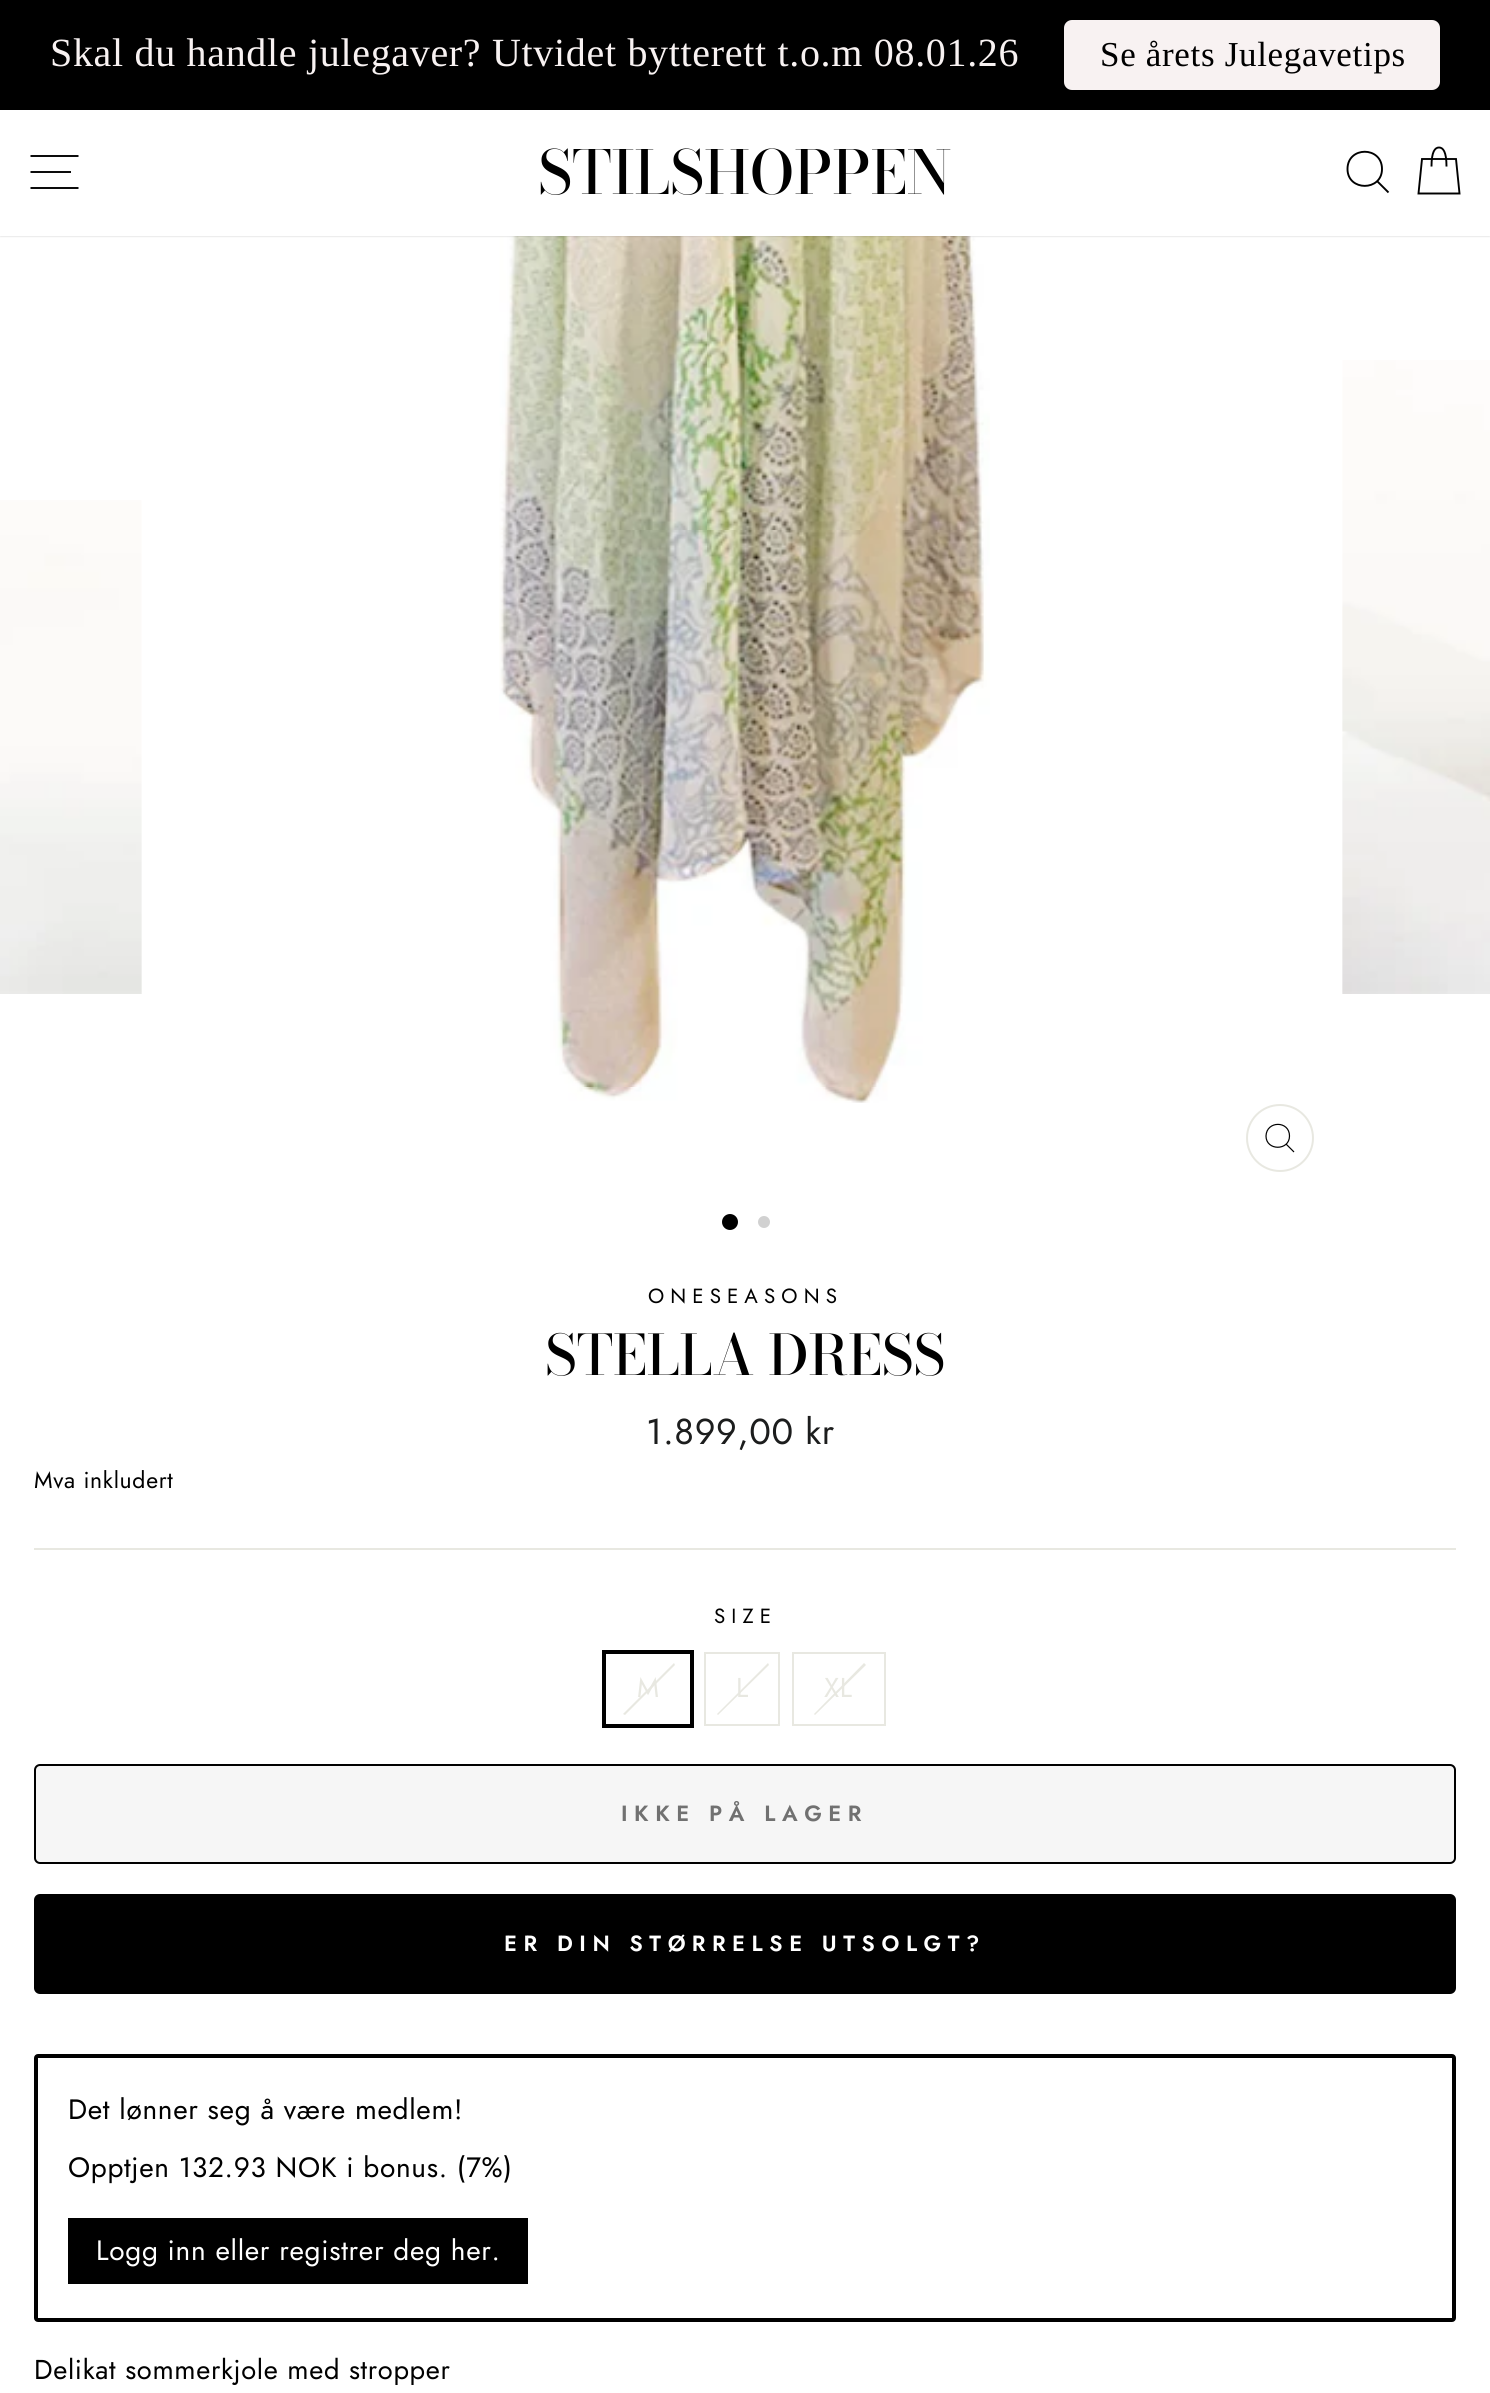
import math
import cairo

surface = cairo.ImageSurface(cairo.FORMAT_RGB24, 1490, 2393)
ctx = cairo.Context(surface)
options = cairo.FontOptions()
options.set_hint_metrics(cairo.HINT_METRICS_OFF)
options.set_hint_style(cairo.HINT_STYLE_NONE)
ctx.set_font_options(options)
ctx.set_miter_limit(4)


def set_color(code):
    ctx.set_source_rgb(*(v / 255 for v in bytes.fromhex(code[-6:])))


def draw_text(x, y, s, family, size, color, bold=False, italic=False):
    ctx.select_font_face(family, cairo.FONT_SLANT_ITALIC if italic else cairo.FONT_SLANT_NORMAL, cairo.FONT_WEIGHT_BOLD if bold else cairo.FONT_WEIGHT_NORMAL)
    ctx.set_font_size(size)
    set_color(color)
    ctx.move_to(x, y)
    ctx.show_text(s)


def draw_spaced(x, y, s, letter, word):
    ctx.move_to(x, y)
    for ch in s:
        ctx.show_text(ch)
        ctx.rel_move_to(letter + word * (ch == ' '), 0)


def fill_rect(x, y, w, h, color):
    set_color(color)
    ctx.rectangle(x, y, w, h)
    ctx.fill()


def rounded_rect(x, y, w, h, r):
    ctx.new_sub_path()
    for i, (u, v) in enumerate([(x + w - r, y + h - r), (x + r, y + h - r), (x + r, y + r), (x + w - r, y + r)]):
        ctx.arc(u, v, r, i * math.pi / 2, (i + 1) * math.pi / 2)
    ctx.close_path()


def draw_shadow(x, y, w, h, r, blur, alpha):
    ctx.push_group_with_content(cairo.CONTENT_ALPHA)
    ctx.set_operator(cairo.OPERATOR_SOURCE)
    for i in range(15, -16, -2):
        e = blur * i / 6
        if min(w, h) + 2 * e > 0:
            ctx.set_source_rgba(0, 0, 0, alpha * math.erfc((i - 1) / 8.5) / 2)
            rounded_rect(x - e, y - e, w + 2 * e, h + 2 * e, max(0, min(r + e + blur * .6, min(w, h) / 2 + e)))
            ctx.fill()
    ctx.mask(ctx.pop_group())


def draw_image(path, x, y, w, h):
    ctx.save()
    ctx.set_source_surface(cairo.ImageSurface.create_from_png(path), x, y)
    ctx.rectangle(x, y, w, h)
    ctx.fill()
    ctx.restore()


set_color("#ffffff")
ctx.paint()
draw_image("assets/img2.png", 499, 236, 491, 867)
set_color("#000000")
draw_shadow(0, 108, 1490, 128, 0, 1, 0.2)
fill_rect(0, 0, 1490, 110, "#000000")
ctx.select_font_face("Liberation Serif")
ctx.set_font_size(40)
set_color("#f8f2f2")
draw_spaced(50, 66, "Skal du handle julegaver? Utvidet bytterett t.o.m 08.01.26", 0.68, 0)
rounded_rect(1064, 20, 376, 70, 8)
ctx.fill()
ctx.set_font_size(35)
set_color("#000000")
draw_spaced(1100, 66, "Se årets Julegavetips", 0.68, 0)
fill_rect(0, 110, 1490, 126, "#ffffff")
ctx.new_path()
ctx.move_to(30.5, 156)
ctx.line_to(78.5, 156)
ctx.move_to(30.5, 172)
ctx.line_to(71, 172)
ctx.move_to(30.5, 188)
ctx.line_to(78.5, 188)
set_color("#000000")
ctx.set_line_width(1.9)
ctx.stroke()
draw_text(538, 194, "STILSHOPPEN", "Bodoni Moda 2 Medium", 60, "#000000")
ctx.new_path()
ctx.move_to(1382, 169)
ctx.curve_to(1382, 191.5, 1347.5, 191.5, 1347.5, 169)
ctx.curve_to(1347.5, 146, 1382, 146, 1382, 169)
ctx.close_path()
ctx.move_to(1388.5, 192.5)
ctx.line_to(1377.5, 181.5)
ctx.stroke()
ctx.new_path()
ctx.move_to(1431.5, 166.5)
ctx.curve_to(1431.5, 151.5, 1435, 147.5, 1439, 147.5)
ctx.curve_to(1443, 147.5, 1446.5, 151.5, 1446.5, 166.5)
ctx.move_to(1422, 159)
ctx.line_to(1456, 159)
ctx.line_to(1459.5, 193.5)
ctx.line_to(1418.5, 193.5)
ctx.close_path()
ctx.stroke()
draw_image("assets/img1.png", 0, 500, 142, 494)
ctx.arc(1280, 1138, 33, 0, 2 * math.pi)
set_color("#e8e8e1")
ctx.set_line_width(2)
ctx.stroke()
ctx.new_path()
ctx.move_to(1289.5, 1136)
ctx.curve_to(1289.5, 1151, 1266, 1151, 1266, 1136)
ctx.curve_to(1266.5, 1120.5, 1289.5, 1120.5, 1289.5, 1136)
ctx.close_path()
ctx.move_to(1294, 1152)
ctx.line_to(1286, 1144)
set_color("#000000")
ctx.set_line_width(1.2)
ctx.stroke()
draw_image("assets/img3.png", 1342, 360, 148, 634)
ctx.arc(730, 1222, 8, 0, 2 * math.pi)
ctx.fill()
set_color("#d1d1d1")
ctx.arc(764, 1222, 6, 0, 2 * math.pi)
ctx.fill()
ctx.select_font_face("Jost")
ctx.set_font_size(20.5)
set_color("#000000")
draw_spaced(648, 1303, "ONESEASONS", 6.1, 0)
draw_text(545, 1375, "STELLA DRESS", "Bodoni Moda Medium", 55.5, "#000000")
ctx.select_font_face("Jost")
ctx.set_font_size(36)
set_color("#1c1d1d")
draw_spaced(646, 1444, "1.899,00 kr", 0.68, 0)
ctx.set_font_size(23)
set_color("#000000")
draw_spaced(34, 1488, "Mva inkludert", 0.68, 0)
fill_rect(34, 1548, 1422, 2, "#e8e8e1")
ctx.set_font_size(20.5)
set_color("#000000")
draw_spaced(714, 1623, "SIZE", 6.1, 0)
ctx.rectangle(604, 1652, 88, 74)
ctx.set_line_width(4)
ctx.stroke()
set_color("#e8e8e1")
ctx.new_path()
ctx.move_to(674, 1663)
ctx.line_to(675, 1665)
ctx.line_to(625, 1715)
ctx.line_to(623, 1714)
ctx.close_path()
ctx.fill()
ctx.set_font_size(27.25)
draw_spaced(637, 1697, "M", 0.68, 0)
ctx.rectangle(705, 1653, 74, 72)
ctx.set_line_width(2)
ctx.stroke()
ctx.new_path()
ctx.move_to(768, 1663)
ctx.line_to(769, 1665)
ctx.line_to(718, 1715)
ctx.line_to(717, 1714)
ctx.close_path()
ctx.fill()
draw_spaced(736, 1697, "L", 0.68, 0)
ctx.rectangle(793, 1653, 92, 72)
ctx.stroke()
ctx.new_path()
ctx.move_to(864, 1663)
ctx.line_to(866, 1665)
ctx.line_to(815, 1715)
ctx.line_to(814, 1714)
ctx.close_path()
ctx.fill()
draw_spaced(824, 1697, "XL", 0.68, 0)
set_color("#f6f6f6")
rounded_rect(35, 1765, 1420, 98, 5)
ctx.fill_preserve()
set_color("#000000")
ctx.stroke()
ctx.select_font_face("Jost SemiBold")
ctx.set_font_size(22)
set_color("#717171")
draw_spaced(621, 1821, "IKKE PÅ LAGER", 6.6, 0)
set_color("#000000")
rounded_rect(35, 1895, 1420, 98, 5)
ctx.fill_preserve()
ctx.stroke()
set_color("#ffffff")
draw_spaced(504, 1951, "ER DIN STØRRELSE UTSOLGT?", 6.6, 0)
rounded_rect(36, 2056, 1418, 264, 2)
set_color("#000000")
ctx.set_line_width(4)
ctx.stroke()
ctx.select_font_face("Jost")
ctx.set_font_size(28)
draw_spaced(68, 2119, "Det lønner seg å være medlem!", 0.68, 0)
draw_spaced(68, 2177, "Opptjen 132.93 NOK i bonus. (7%)", 0.68, 0)
fill_rect(68, 2218, 460, 66, "#000000")
set_color("#ffffff")
draw_spaced(96, 2260, "Logg inn eller registrer deg her.", 0.68, 0)
ctx.set_font_size(27.25)
set_color("#000000")
draw_spaced(34, 2379, "Delikat sommerkjole med stropper", 0.68, 0)
surface.write_to_png("output.png")
